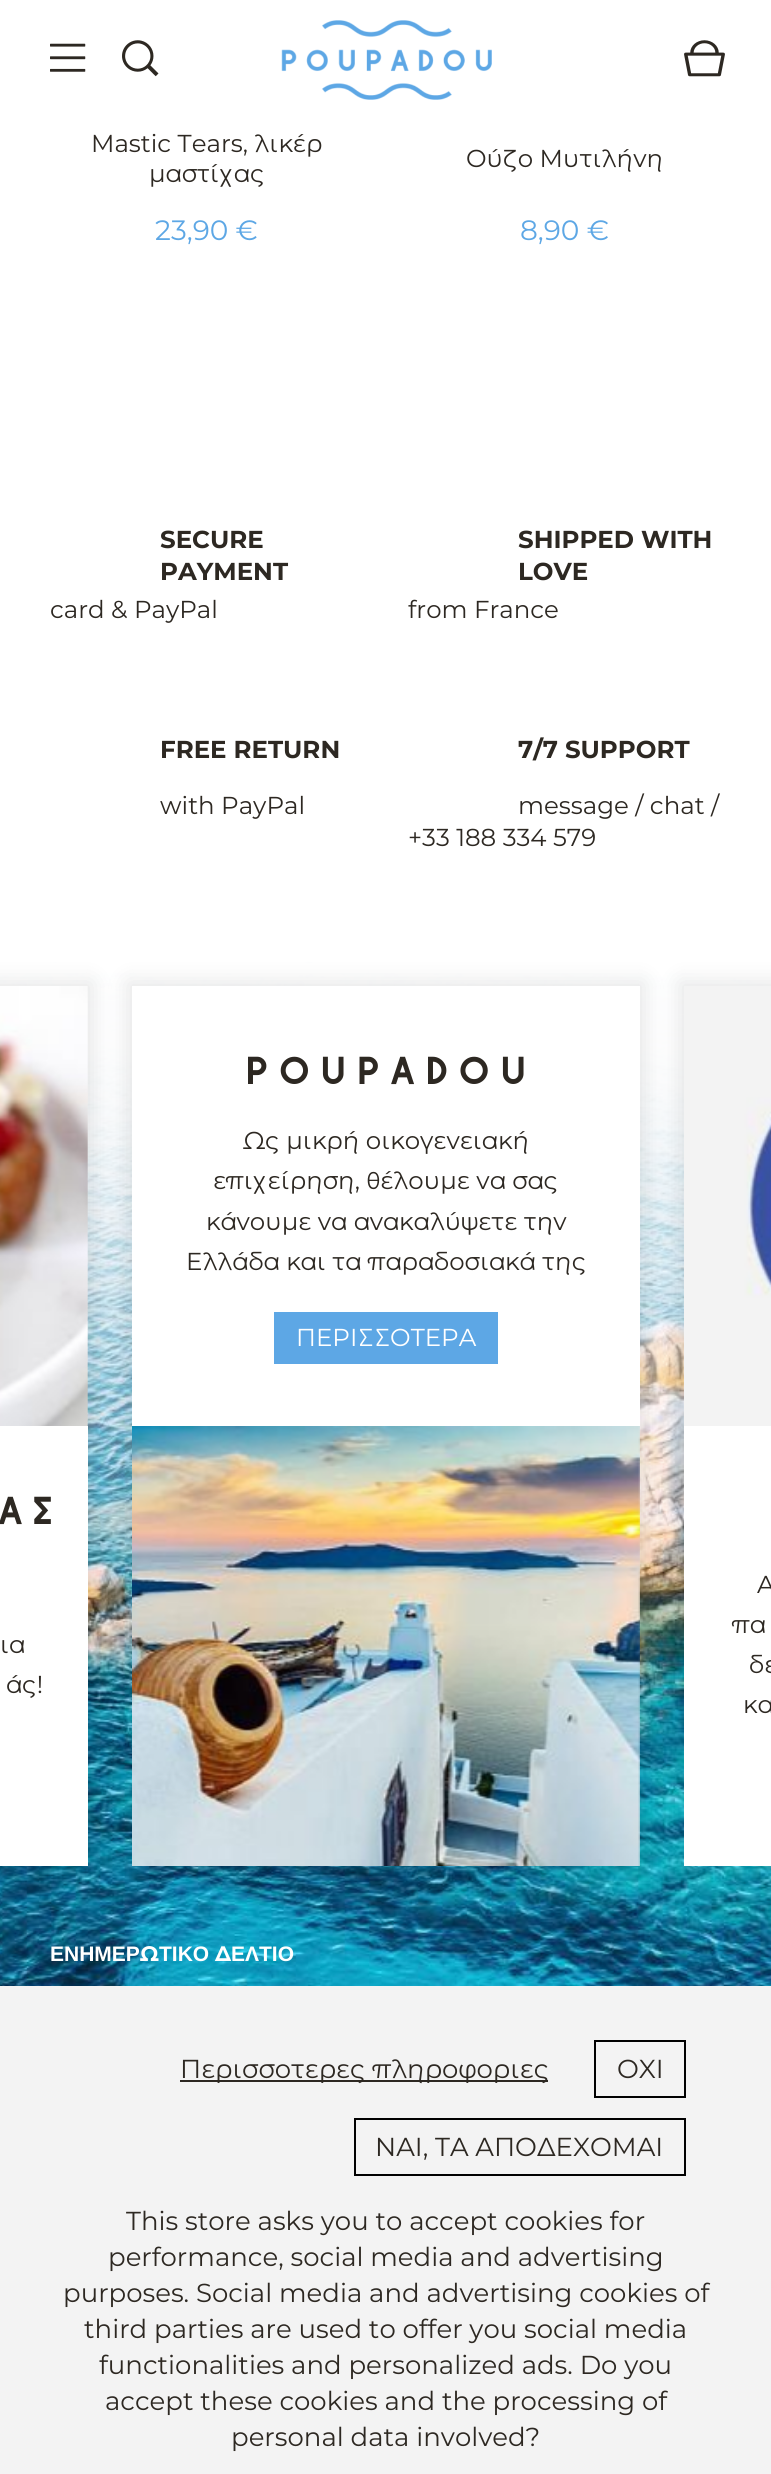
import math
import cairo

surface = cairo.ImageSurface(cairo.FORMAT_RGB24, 771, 2474)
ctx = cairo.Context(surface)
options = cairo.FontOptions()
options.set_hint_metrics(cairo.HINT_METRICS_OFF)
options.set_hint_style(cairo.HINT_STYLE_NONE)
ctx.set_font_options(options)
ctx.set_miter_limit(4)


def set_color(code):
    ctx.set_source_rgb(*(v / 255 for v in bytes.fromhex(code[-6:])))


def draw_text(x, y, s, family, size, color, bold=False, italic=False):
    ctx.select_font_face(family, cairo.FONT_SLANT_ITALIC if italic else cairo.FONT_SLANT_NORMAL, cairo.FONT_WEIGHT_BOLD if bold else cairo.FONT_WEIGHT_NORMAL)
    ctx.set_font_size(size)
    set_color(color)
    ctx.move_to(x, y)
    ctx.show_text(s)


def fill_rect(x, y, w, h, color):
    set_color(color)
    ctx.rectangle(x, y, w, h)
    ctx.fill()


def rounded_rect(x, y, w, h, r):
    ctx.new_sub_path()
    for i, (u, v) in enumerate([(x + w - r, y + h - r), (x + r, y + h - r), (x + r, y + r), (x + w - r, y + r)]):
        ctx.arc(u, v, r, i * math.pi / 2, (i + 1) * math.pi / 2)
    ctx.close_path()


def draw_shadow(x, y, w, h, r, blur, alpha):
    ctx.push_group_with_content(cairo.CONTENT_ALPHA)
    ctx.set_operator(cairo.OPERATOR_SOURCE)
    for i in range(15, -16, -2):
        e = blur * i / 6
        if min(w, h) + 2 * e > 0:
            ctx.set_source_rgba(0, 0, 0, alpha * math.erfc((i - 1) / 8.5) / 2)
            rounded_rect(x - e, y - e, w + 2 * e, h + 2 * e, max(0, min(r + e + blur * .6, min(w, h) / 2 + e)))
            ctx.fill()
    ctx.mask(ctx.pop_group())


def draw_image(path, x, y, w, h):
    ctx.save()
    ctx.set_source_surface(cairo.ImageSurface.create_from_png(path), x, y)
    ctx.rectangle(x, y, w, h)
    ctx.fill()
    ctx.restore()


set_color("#ffffff")
ctx.paint()
draw_image("assets/img1.png", 50, 43, 36, 29)
draw_image("assets/img2.png", 122, 40, 37, 37)
draw_image("assets/img3.png", 281, 20, 211, 80)
draw_image("assets/img4.png", 684, 40, 41, 37)
draw_text(91, 152, "Mastic Tears, λικέρ", "Montserrat", 24.5, "#2d2822")
draw_text(149, 182, "μαστίχας", "Montserrat", 24.5, "#2d2822")
draw_text(155, 240, "23,90 €", "Montserrat", 28, "#5da7e5")
draw_text(466, 167, "Ούζο Μυτιλήνη", "Montserrat", 24.5, "#2d2822")
draw_text(520, 240, "8,90 €", "Montserrat", 28, "#5da7e5")
draw_text(160, 548, "SECURE", "Montserrat", 24.5, "#2d2822", bold=True)
draw_text(160, 580, "PAYMENT", "Montserrat", 24.5, "#2d2822", bold=True)
draw_text(50, 618, "card & PayPal", "Montserrat", 24.5, "#2d2822")
draw_text(518, 548, "SHIPPED WITH", "Montserrat", 24.5, "#2d2822", bold=True)
draw_text(518, 580, "LOVE", "Montserrat", 24.5, "#2d2822", bold=True)
draw_text(408, 618, "from France", "Montserrat", 24.5, "#2d2822")
draw_text(160, 758, "FREE RETURN", "Montserrat", 24.5, "#2d2822", bold=True)
draw_text(160, 814, "with PayPal", "Montserrat", 24.5, "#2d2822")
draw_text(518, 758, "7/7 SUPPORT", "Montserrat", 24.5, "#2d2822", bold=True)
draw_text(518, 814, "message / chat /", "Montserrat", 24.5, "#2d2822")
draw_text(408, 846, "+33 188 334 579", "Montserrat", 24.5, "#2d2822")
draw_image("assets/img5.png", 0, 902, 771, 1084)
set_color("#000000")
draw_shadow(128, 982, 516, 888, 0, 11, 0.1)
fill_rect(132, 986, 508, 440, "#ffffff")
draw_text(240, 1084, "POUPADOU", "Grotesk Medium", 42, "#2d2822")
draw_text(243, 1149, "Ως μικρή οικογενειακή", "Montserrat", 24.5, "#2d2822")
draw_text(213, 1189, "επιχείρηση, θέλουμε να σας", "Montserrat", 24.5, "#2d2822")
draw_text(206, 1230, "κάνουμε να ανακαλύψετε την", "Montserrat", 24.5, "#2d2822")
draw_text(186, 1270, "Ελλάδα και τα παραδοσιακά της", "Montserrat", 24.5, "#2d2822")
fill_rect(274, 1312, 224, 52, "#5da7e5")
draw_text(296, 1346, "ΠΕΡΙΣΣΟΤΕΡΑ", "Montserrat", 24.5, "#ffffff")
draw_image("assets/img6.png", 132, 1426, 508, 440)
set_color("#000000")
draw_shadow(-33, 982, 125, 888, 0, 11, 0.1)
draw_image("assets/img7.png", 0, 986, 88, 440)
fill_rect(0, 1426, 88, 440, "#ffffff")
draw_text(-7, 1524, "ΑΣ", "Grotesk Medium", 42, "#2d2822")
draw_text(0, 1653, "ια", "Montserrat", 24.5, "#2d2822")
draw_text(6, 1693, "άς!", "Montserrat", 24.5, "#2d2822")
set_color("#000000")
draw_shadow(680, 982, 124, 888, 0, 11, 0.1)
draw_image("assets/img8.png", 684, 986, 87, 440)
fill_rect(684, 1426, 87, 440, "#ffffff")
draw_text(757, 1593, "Α", "Montserrat", 24.5, "#2d2822")
draw_text(732, 1633, "πα", "Montserrat", 24.5, "#2d2822")
draw_text(749, 1673, "δε", "Montserrat", 24.5, "#2d2822")
draw_text(743, 1713, "κα", "Montserrat", 24.5, "#2d2822")
draw_text(50, 1961, "ΕΝΗΜΕΡ", "Liberation Sans", 21, "#ffffff", bold=True)
draw_text(140, 1961, "Ω", "Montserrat", 21, "#ffffff", bold=True)
draw_text(159, 1961, "ΤΙΚΟ", "Liberation Sans", 21, "#ffffff", bold=True)
draw_text(215, 1961, "Δ", "Montserrat", 21, "#ffffff", bold=True)
draw_text(231, 1961, "ΕΛΤΙΟ", "Liberation Sans", 21, "#ffffff", bold=True)
fill_rect(0, 1986, 771, 488, "#f3f3f3")
fill_rect(180, 2080, 368, 2, "#2d2822")
draw_text(180, 2078, "Περισσοτερες πληροφοριες", "Montserrat", 26, "#2d2822")
ctx.rectangle(595, 2041, 90, 56)
set_color("#000000")
ctx.stroke()
draw_text(617, 2078, "ΟΧΙ", "Montserrat", 26, "#2d2822")
ctx.rectangle(355, 2119, 330, 56)
set_color("#000000")
ctx.stroke()
draw_text(375, 2156, "ΝΑΙ, ΤΑ ΑΠΟΔΕΧΟΜΑΙ", "Montserrat", 26, "#2d2822")
draw_text(126, 2230, "This store asks you to accept cookies for", "Montserrat", 26, "#2d2822")
draw_text(108, 2266, "performance, social media and advertising", "Montserrat", 26, "#2d2822")
draw_text(63, 2302, "purposes. Social media and advertising cookies of", "Montserrat", 26, "#2d2822")
draw_text(84, 2338, "third parties are used to offer you social media", "Montserrat", 26, "#2d2822")
draw_text(99, 2374, "functionalities and personalized ads. Do you", "Montserrat", 26, "#2d2822")
draw_text(105, 2410, "accept these cookies and the processing of", "Montserrat", 26, "#2d2822")
draw_text(231, 2446, "personal data involved?", "Montserrat", 26, "#2d2822")
surface.write_to_png("output.png")
